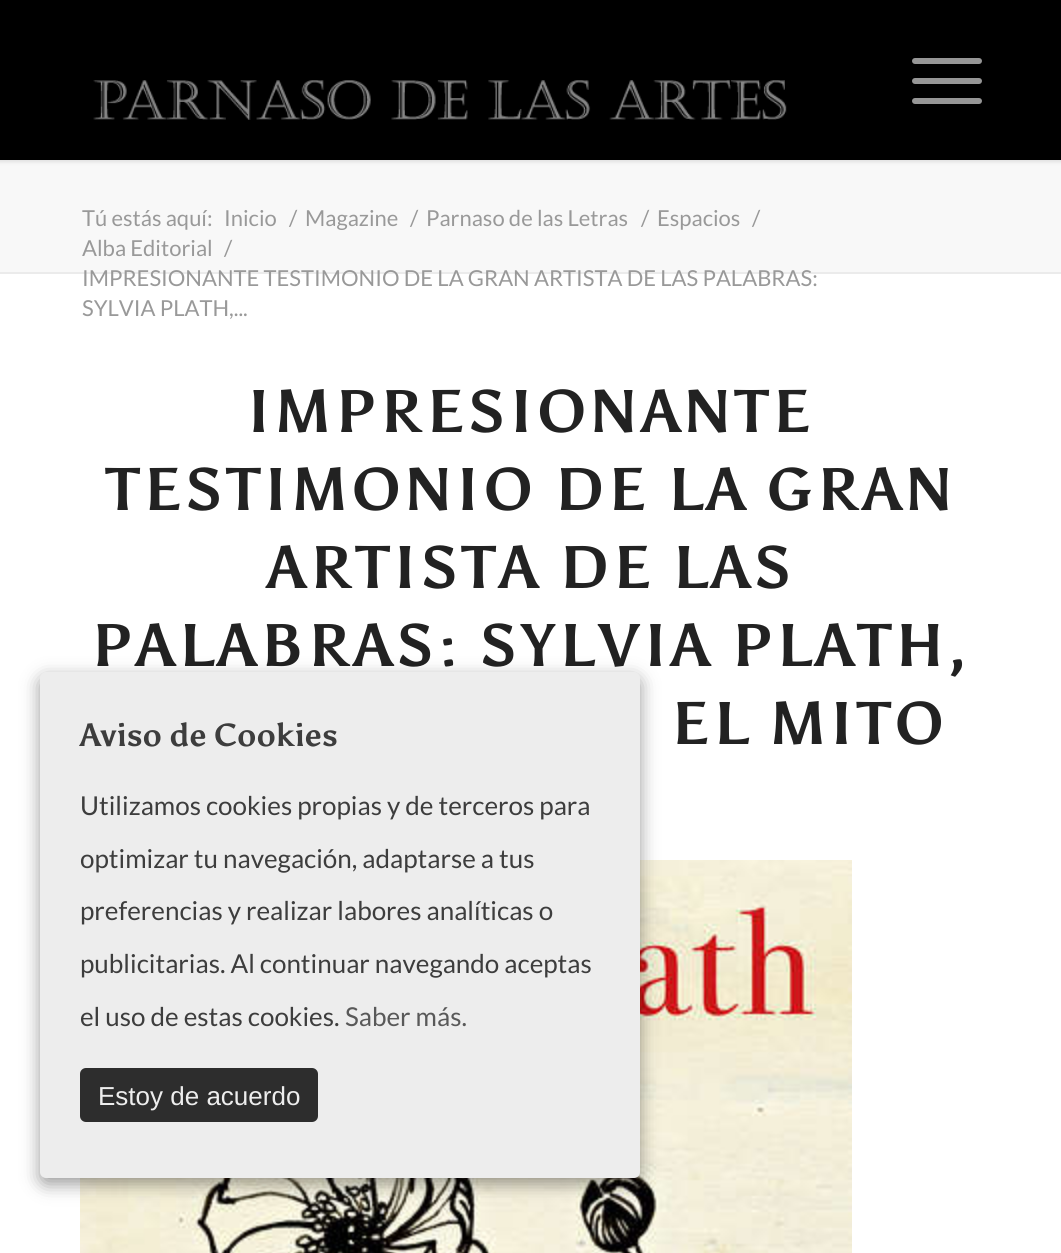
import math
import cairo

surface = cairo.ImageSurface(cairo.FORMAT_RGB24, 1061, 1253)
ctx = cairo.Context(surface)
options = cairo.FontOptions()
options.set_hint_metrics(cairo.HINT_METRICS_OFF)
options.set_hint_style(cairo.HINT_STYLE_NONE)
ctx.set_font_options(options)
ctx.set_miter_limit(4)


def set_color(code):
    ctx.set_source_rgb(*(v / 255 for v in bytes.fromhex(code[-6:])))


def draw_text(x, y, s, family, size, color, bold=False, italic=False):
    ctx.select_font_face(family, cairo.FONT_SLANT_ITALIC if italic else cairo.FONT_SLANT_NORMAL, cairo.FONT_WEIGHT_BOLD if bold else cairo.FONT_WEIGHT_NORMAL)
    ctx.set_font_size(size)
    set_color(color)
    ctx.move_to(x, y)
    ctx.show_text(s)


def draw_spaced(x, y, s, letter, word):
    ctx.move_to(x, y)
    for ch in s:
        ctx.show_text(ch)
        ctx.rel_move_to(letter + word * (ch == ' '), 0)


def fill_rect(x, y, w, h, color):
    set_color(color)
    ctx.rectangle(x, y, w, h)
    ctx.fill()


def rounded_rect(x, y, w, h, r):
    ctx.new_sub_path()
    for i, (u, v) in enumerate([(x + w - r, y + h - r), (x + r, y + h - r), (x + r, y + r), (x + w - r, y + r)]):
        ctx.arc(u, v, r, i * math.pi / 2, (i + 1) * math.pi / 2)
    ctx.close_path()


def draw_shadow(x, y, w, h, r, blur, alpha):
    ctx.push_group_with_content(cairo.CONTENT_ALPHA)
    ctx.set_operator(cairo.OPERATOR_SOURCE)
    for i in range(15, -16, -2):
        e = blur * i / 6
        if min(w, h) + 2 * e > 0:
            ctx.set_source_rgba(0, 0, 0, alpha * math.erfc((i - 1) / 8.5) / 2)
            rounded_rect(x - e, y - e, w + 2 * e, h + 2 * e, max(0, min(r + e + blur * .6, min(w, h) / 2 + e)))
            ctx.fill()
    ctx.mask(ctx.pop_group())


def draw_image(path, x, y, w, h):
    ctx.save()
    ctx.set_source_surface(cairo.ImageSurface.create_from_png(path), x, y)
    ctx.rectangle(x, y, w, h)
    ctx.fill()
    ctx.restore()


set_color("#f8f8f8")
ctx.paint()
set_color("#000000")
draw_shadow(-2, -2, 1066, 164, 0, 2, 0.1)
fill_rect(0, 0, 1061, 160, "#000000")
draw_image("assets/img1.png", 93, 80, 694, 40)
set_color("#969696")
rounded_rect(912, 78, 70, 6, 3)
ctx.fill()
rounded_rect(912, 58, 70, 6, 3)
ctx.fill()
rounded_rect(912, 98, 70, 6, 3)
ctx.fill()
draw_text(82, 226, "Tú estás aquí:", "Lato", 22, "#999999")
draw_text(224, 226, "Inicio", "Lato", 22, "#999999")
draw_text(289, 226, "/", "Lato", 22, "#999999")
draw_text(305, 226, "Magazine", "Lato", 22, "#999999")
draw_text(410, 226, "/", "Lato", 22, "#999999")
draw_text(426, 226, "Parnaso de las Letras", "Lato", 22, "#999999")
draw_text(641, 226, "/", "Lato", 22, "#999999")
draw_text(657, 226, "Espacios", "Lato", 22, "#999999")
draw_text(752, 226, "/", "Lato", 22, "#999999")
draw_text(82, 256, "Alba Editorial", "Lato", 22, "#999999")
draw_text(224, 256, "/", "Lato", 22, "#999999")
fill_rect(0, 274, 1061, 979, "#ffffff")
fill_rect(0, 272, 1061, 2, "#ebebeb")
draw_text(82, 286, "IMPRESIONANTE TESTIMONIO DE LA GRAN ARTISTA DE LAS PALABRAS:", "Lato", 22, "#999999")
draw_text(82, 316, "SYLVIA PLATH,...", "Lato", 22, "#999999")
ctx.select_font_face("Asul", cairo.FONT_SLANT_NORMAL, cairo.FONT_WEIGHT_BOLD)
ctx.set_font_size(60)
set_color("#222222")
draw_spaced(247, 432, "IMPRESIONANTE", 4, 0)
draw_spaced(106, 510, "TESTIMONIO DE LA GRAN", 4, 0)
draw_spaced(267, 588, "ARTISTA DE LAS", 4, 0)
draw_spaced(91, 666, "PALABRAS: SYLVIA PLATH,", 4, 0)
draw_spaced(671, 744, "EL MITO", 4, 0)
draw_image("assets/img2.png", 80, 860, 772, 393)
set_color("#000000")
draw_shadow(40, 678, 600, 506, 6, 9, 0.4)
set_color("#ededed")
rounded_rect(40, 672, 600, 506, 6)
ctx.fill()
draw_text(80, 746, "Aviso de Cookies", "Asul", 32, "#3d3d3d", bold=True)
draw_text(80, 815, "Utilizamos cookies propias y de terceros para", "Lato", 26, "#3d3d3d")
draw_text(80, 868, "optimizar tu navegación, adaptarse a tus", "Lato", 26, "#3d3d3d")
draw_text(80, 920, "preferencias y realizar labores analíticas o", "Lato", 26, "#3d3d3d")
draw_text(80, 973, "publicitarias. Al continuar navegando aceptas", "Lato", 26, "#3d3d3d")
draw_text(80, 1026, "el uso de estas cookies.", "Lato", 26, "#3d3d3d")
draw_text(345, 1026, "Saber más.", "Lato", 26, "#595959")
set_color("#2d2d2d")
rounded_rect(80, 1068, 238, 54, 6)
ctx.fill()
draw_text(98, 1105, "Estoy de acuerdo", "Liberation Sans", 26, "#ededed")
surface.write_to_png("output.png")
